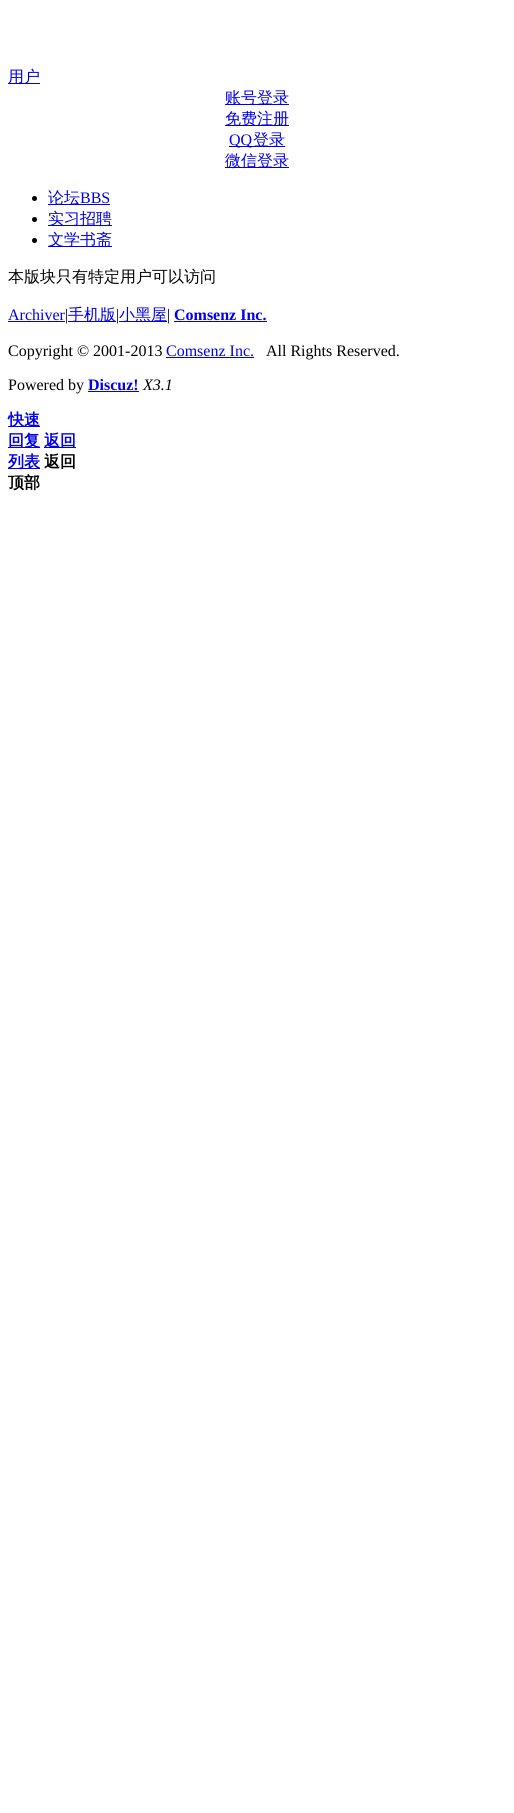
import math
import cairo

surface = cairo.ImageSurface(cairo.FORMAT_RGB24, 514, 1813)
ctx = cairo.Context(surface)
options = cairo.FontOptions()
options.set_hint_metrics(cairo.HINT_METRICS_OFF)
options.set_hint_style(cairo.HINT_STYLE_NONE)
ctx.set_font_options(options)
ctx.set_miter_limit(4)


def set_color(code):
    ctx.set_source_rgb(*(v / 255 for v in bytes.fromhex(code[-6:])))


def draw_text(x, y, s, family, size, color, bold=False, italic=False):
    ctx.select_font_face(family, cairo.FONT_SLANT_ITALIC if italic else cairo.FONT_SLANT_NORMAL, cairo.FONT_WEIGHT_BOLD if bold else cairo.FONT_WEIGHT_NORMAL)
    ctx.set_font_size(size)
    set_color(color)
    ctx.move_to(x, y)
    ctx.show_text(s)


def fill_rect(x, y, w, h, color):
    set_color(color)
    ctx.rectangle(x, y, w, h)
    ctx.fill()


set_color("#ffffff")
ctx.paint()
fill_rect(8, 83, 32, 1, "#0000ee")
draw_text(8, 82, "用户", "WenQuanYi Zen Hei Medium", 16, "#0000ee")
fill_rect(225, 104, 64, 1, "#0000ee")
draw_text(225, 103, "账号登录", "WenQuanYi Zen Hei Medium", 16, "#0000ee")
fill_rect(225, 125, 64, 1, "#0000ee")
draw_text(225, 124, "免费注册", "WenQuanYi Zen Hei Medium", 16, "#0000ee")
fill_rect(229, 146, 56, 1, "#0000ee")
draw_text(229, 145, "QQ", "Liberation Serif", 16, "#0000ee")
draw_text(253, 145, "登录", "WenQuanYi Zen Hei Medium", 16, "#0000ee")
fill_rect(225, 167, 64, 1, "#0000ee")
draw_text(225, 166, "微信登录", "WenQuanYi Zen Hei Medium", 16, "#0000ee")
set_color("#000000")
ctx.new_path()
ctx.arc(34.5, 198.5, 2.5, 0, 2 * math.pi)
ctx.fill()
fill_rect(48, 204, 62, 1, "#0000ee")
draw_text(48, 203, "论坛", "WenQuanYi Zen Hei Medium", 16, "#0000ee")
draw_text(80, 203, "BBS", "Liberation Serif", 16, "#0000ee")
set_color("#000000")
ctx.new_path()
ctx.arc(34.5, 219.5, 2.5, 0, 2 * math.pi)
ctx.fill()
fill_rect(48, 225, 64, 1, "#0000ee")
draw_text(48, 224, "实习招聘", "WenQuanYi Zen Hei Medium", 16, "#0000ee")
set_color("#000000")
ctx.new_path()
ctx.arc(34.5, 240.5, 2.5, 0, 2 * math.pi)
ctx.fill()
fill_rect(48, 246, 64, 1, "#0000ee")
draw_text(48, 245, "文学书斋", "WenQuanYi Zen Hei Medium", 16, "#0000ee")
draw_text(8, 282, "本版块只有特定用户可以访问", "WenQuanYi Zen Hei Medium", 16, "#000000")
draw_text(8, 320, "Archiver", "Liberation Serif", 16, "#0000ee")
fill_rect(8, 321, 57, 1, "#0000ee")
draw_text(65, 320, "|", "Liberation Serif", 16, "#000000")
fill_rect(68, 321, 48, 1, "#0000ee")
draw_text(68, 320, "手机版", "WenQuanYi Zen Hei Medium", 16, "#0000ee")
draw_text(116, 320, "|", "Liberation Serif", 16, "#000000")
fill_rect(119, 321, 48, 1, "#0000ee")
draw_text(119, 320, "小黑屋", "WenQuanYi Zen Hei Medium", 16, "#0000ee")
draw_text(167, 320, "|", "Liberation Serif", 16, "#000000")
draw_text(174, 320, "Comsenz Inc.", "Liberation Serif", 16, "#0000ee", bold=True)
fill_rect(174, 321, 93, 1, "#0000ee")
draw_text(8, 356, "Copyright © 2001-2013", "Liberation Serif", 16, "#000000")
draw_text(166, 356, "Comsenz Inc.", "Liberation Serif", 16, "#0000ee")
fill_rect(166, 357, 88, 1, "#0000ee")
draw_text(266, 356, "All Rights Reserved.", "Liberation Serif", 16, "#000000")
draw_text(8, 390, "Powered by", "Liberation Serif", 16, "#000000")
draw_text(88, 390, "Discuz!", "Liberation Serif", 16, "#0000ee", bold=True)
fill_rect(88, 391, 51, 1, "#0000ee")
draw_text(143, 390, "X3.1", "Liberation Serif", 16, "#000000", italic=True)
fill_rect(8, 426, 32, 1, "#0000ee")
draw_text(8, 425, "快速", "WenQuanYi Zen Hei", 16, "#0000ee", bold=True)
fill_rect(8, 447, 32, 1, "#0000ee")
draw_text(8, 446, "回复", "WenQuanYi Zen Hei", 16, "#0000ee", bold=True)
fill_rect(44, 447, 32, 1, "#0000ee")
draw_text(44, 446, "返回", "WenQuanYi Zen Hei", 16, "#0000ee", bold=True)
fill_rect(8, 468, 32, 1, "#0000ee")
draw_text(8, 467, "列表", "WenQuanYi Zen Hei", 16, "#0000ee", bold=True)
draw_text(44, 467, "返回", "WenQuanYi Zen Hei", 16, "#000000", bold=True)
draw_text(8, 488, "顶部", "WenQuanYi Zen Hei", 16, "#000000", bold=True)
surface.write_to_png("output.png")
